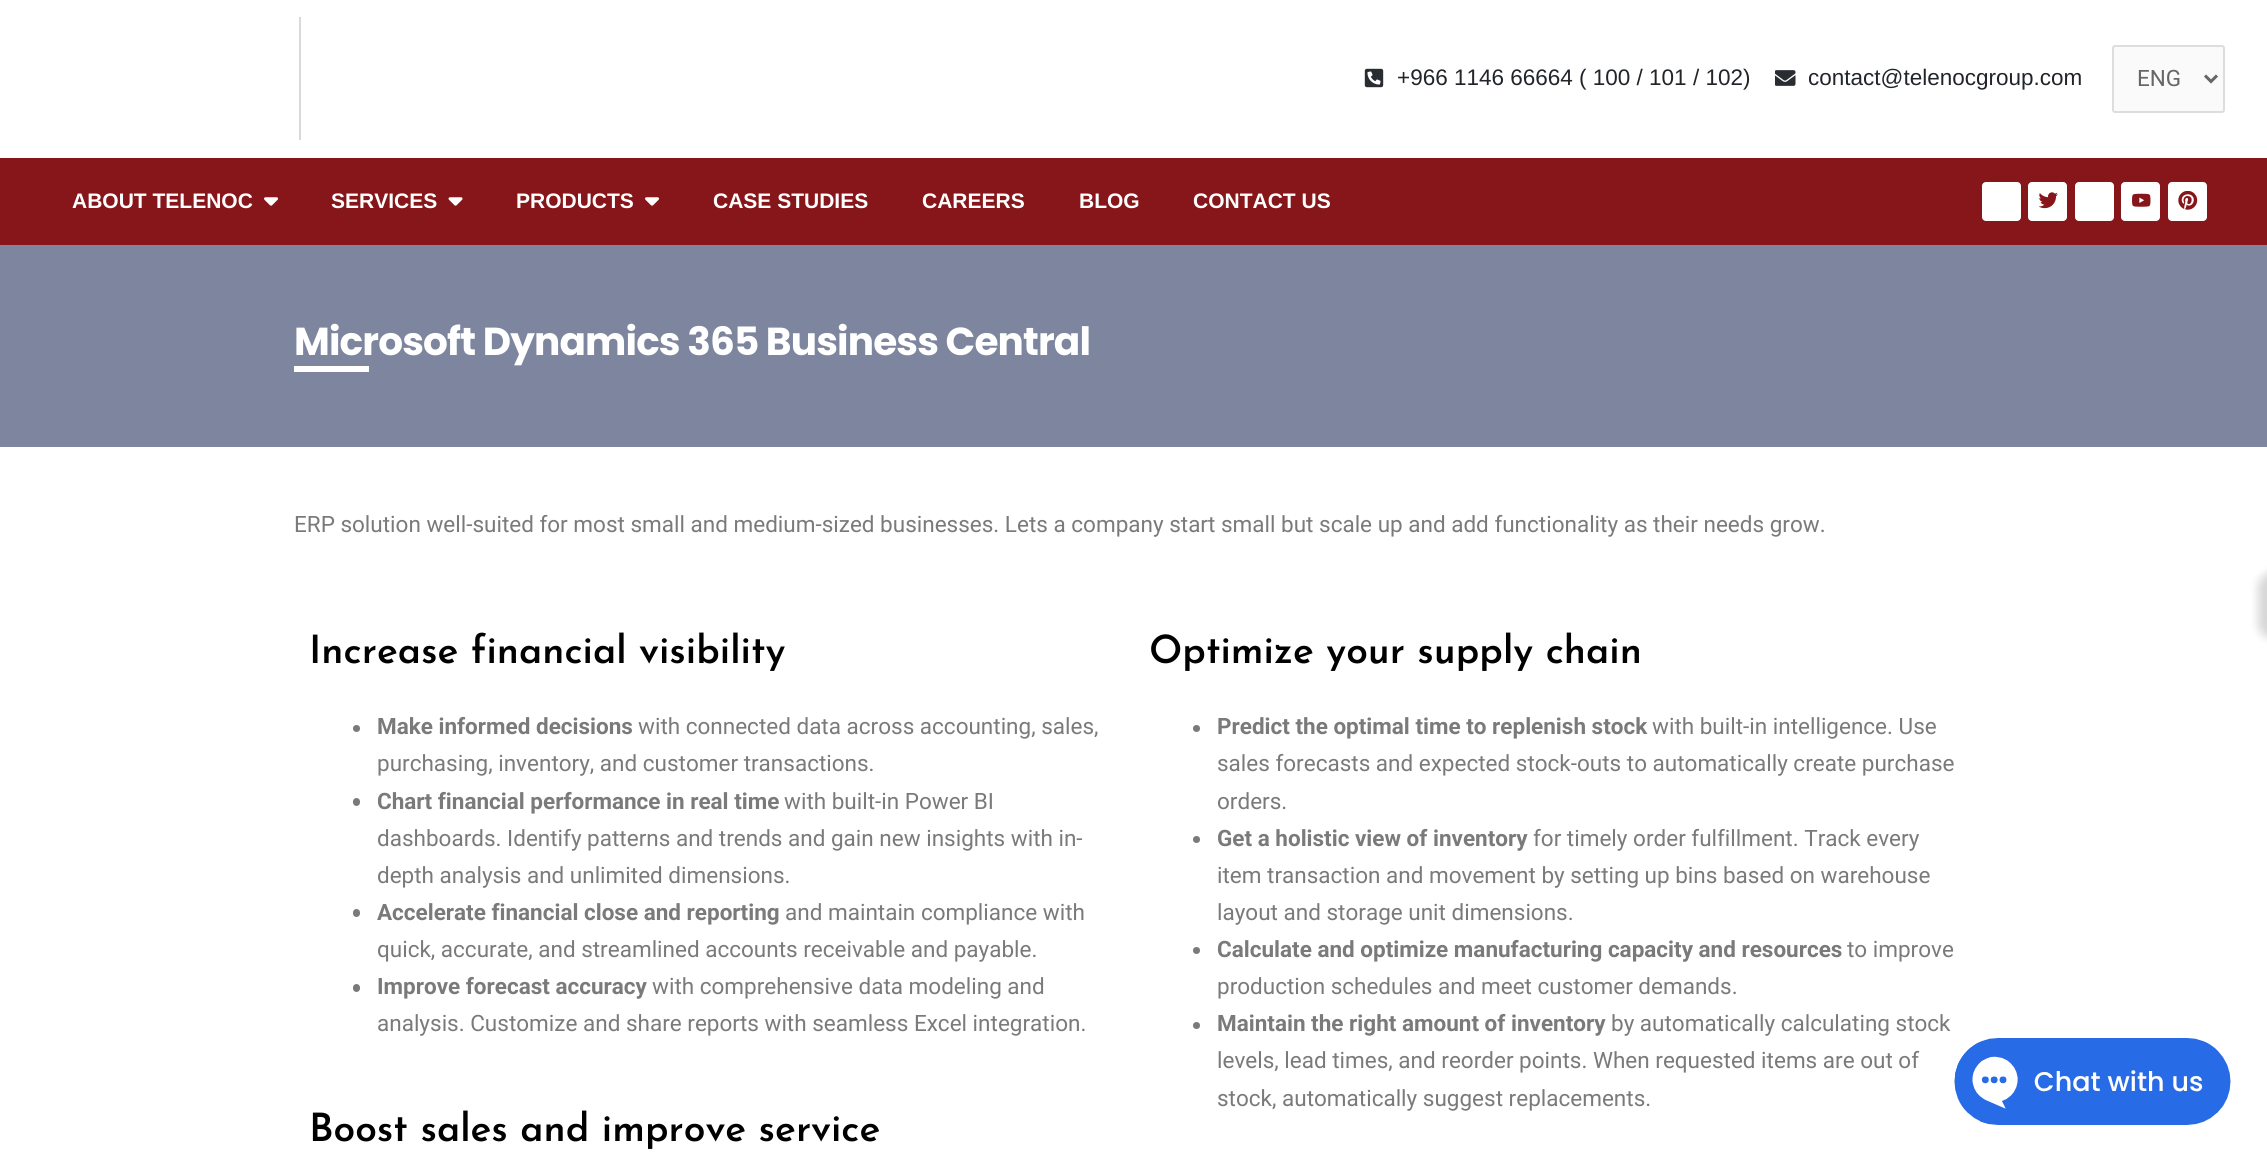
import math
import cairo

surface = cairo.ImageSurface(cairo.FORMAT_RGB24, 2267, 1162)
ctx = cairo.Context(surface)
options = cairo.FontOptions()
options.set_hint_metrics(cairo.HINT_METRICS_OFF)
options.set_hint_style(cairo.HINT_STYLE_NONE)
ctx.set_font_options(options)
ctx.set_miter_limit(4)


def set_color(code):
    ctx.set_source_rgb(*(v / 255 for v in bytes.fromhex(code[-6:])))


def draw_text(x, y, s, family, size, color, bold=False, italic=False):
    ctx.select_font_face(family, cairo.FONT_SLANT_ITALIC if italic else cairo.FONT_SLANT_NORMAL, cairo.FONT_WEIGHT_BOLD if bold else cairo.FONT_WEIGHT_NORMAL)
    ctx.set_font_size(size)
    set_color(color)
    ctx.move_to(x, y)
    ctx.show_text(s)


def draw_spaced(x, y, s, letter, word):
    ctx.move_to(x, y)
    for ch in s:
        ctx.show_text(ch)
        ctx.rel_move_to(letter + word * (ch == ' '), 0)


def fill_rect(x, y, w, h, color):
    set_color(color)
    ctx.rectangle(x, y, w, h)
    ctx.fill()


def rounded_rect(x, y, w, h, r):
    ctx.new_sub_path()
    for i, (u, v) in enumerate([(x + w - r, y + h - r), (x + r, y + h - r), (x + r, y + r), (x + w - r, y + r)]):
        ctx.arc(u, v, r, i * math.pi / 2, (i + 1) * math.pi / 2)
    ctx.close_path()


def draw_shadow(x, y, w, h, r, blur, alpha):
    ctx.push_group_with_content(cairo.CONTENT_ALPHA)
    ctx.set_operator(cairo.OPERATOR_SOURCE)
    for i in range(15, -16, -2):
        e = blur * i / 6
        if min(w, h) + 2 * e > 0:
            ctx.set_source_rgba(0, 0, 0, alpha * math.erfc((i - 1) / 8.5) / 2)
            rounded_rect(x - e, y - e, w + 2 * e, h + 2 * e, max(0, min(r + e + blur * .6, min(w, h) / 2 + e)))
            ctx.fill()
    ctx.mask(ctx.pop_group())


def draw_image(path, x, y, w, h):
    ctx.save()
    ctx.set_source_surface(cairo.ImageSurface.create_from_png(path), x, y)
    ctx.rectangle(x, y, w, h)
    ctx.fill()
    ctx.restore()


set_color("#ffffff")
ctx.paint()
fill_rect(299, 17, 2, 123, "#d9d9d9")
draw_image("assets/img1.png", 1364, 68, 20, 20)
draw_text(1397, 85, "+966 1146 66664 ( 100 / 101 / 102)", "Liberation Sans", 22.5, "#212529")
draw_image("assets/img2.png", 1775, 70, 21, 16)
draw_text(1808, 85, "contact@telenocgroup.com", "Liberation Sans", 22.5, "#212529")
set_color("#fafafa")
rounded_rect(2113, 46, 111, 66, 2)
ctx.fill_preserve()
set_color("#dddddd")
ctx.stroke()
ctx.new_path()
ctx.move_to(2205, 75.5)
ctx.line_to(2211, 81.5)
ctx.line_to(2217, 75.5)
set_color("#666666")
ctx.set_line_width(3)
ctx.stroke()
draw_text(2137, 86, "ENG", "Roboto", 22.5, "#666666")
fill_rect(0, 158, 2267, 87, "#861619")
draw_text(72, 208, "ABOUT TELENOC", "Liberation Sans", 21, "#ffffff", bold=True)
draw_image("assets/img3.png", 264, 197, 14, 9)
draw_text(331, 208, "SERVICES", "Liberation Sans", 21, "#ffffff", bold=True)
draw_image("assets/img4.png", 448, 197, 15, 9)
draw_text(516, 208, "PRODUCTS", "Liberation Sans", 21, "#ffffff", bold=True)
draw_image("assets/img3.png", 645, 197, 14, 9)
draw_text(713, 208, "CASE STUDIES", "Liberation Sans", 21, "#ffffff", bold=True)
draw_text(922, 208, "CAREERS", "Liberation Sans", 21, "#ffffff", bold=True)
draw_text(1079, 208, "BLOG", "Liberation Sans", 21, "#ffffff", bold=True)
draw_text(1193, 208, "CONTACT US", "Liberation Sans", 21, "#ffffff", bold=True)
rounded_rect(1982, 182, 39, 39, 4)
ctx.fill()
rounded_rect(2028, 182, 39, 39, 4)
ctx.fill()
draw_image("assets/img5.png", 2039, 192, 19, 17)
rounded_rect(2075, 182, 39, 39, 4)
ctx.fill()
rounded_rect(2121, 182, 39, 39, 4)
ctx.fill()
draw_image("assets/img6.png", 2132, 193, 19, 14)
rounded_rect(2168, 182, 39, 39, 4)
ctx.fill()
draw_image("assets/img7.png", 2178, 191, 20, 19)
fill_rect(0, 245, 2267, 202, "#7d869e")
ctx.select_font_face("Poppins", cairo.FONT_SLANT_NORMAL, cairo.FONT_WEIGHT_BOLD)
ctx.set_font_size(39)
set_color("#ffffff")
draw_spaced(294, 355, "Microsoft Dynamics 365 Business Central", -0.85, 0)
fill_rect(294, 366, 75, 6, "#ffffff")
draw_text(294, 532, "ERP solution well-suited for most small and medium-sized businesses. Lets a company start small but scale up and add functionality as their needs grow.", "Roboto", 22.5, "#7a7a7a")
draw_text(309, 663, "Increase financial visibility", "Josefin Sans SemiBold", 39, "#000000")
set_color("#7a7a7a")
ctx.new_path()
ctx.arc(356.5, 728.5, 3.5, 0, 2 * math.pi)
ctx.fill()
draw_text(377, 734, "Make informed decisions", "Roboto", 22.5, "#7a7a7a", bold=True)
draw_text(638, 734, "with connected data across accounting, sales,", "Roboto", 22.5, "#7a7a7a")
draw_text(377, 771, "purchasing, inventory, and customer transactions.", "Roboto", 22.5, "#7a7a7a")
rounded_rect(353, 798, 7, 8, 3.5)
ctx.fill()
draw_text(377, 809, "Chart financial performance in real time", "Roboto", 22.5, "#7a7a7a", bold=True)
draw_text(784, 809, "with built-in Power BI", "Roboto", 22.5, "#7a7a7a")
draw_text(377, 846, "dashboards. Identify patterns and trends and gain new insights with in-", "Roboto", 22.5, "#7a7a7a")
draw_text(377, 883, "depth analysis and unlimited dimensions.", "Roboto", 22.5, "#7a7a7a")
rounded_rect(353, 909, 7, 8, 3.5)
ctx.fill()
draw_text(377, 920, "Accelerate financial close and reporting", "Roboto", 22.5, "#7a7a7a", bold=True)
draw_text(785, 920, "and maintain compliance with", "Roboto", 22.5, "#7a7a7a")
draw_text(377, 957, "quick, accurate, and streamlined accounts receivable and payable.", "Roboto", 22.5, "#7a7a7a")
rounded_rect(353, 984, 7, 8, 3.5)
ctx.fill()
draw_text(377, 994, "Improve forecast accuracy", "Roboto", 22.5, "#7a7a7a", bold=True)
draw_text(652, 994, "with comprehensive data modeling and", "Roboto", 22.5, "#7a7a7a")
draw_text(377, 1031, "analysis. Customize and share reports with seamless Excel integration.", "Roboto", 22.5, "#7a7a7a")
draw_text(309, 1141, "Boost sales and improve service", "Josefin Sans SemiBold", 39, "#000000")
draw_text(1149, 663, "Optimize your supply chain", "Josefin Sans SemiBold", 39, "#000000")
set_color("#7a7a7a")
ctx.new_path()
ctx.arc(1196.5, 728.5, 3.5, 0, 2 * math.pi)
ctx.fill()
draw_text(1217, 734, "Predict the optimal time to replenish stock", "Roboto", 22.5, "#7a7a7a", bold=True)
draw_text(1652, 734, "with built-in intelligence. Use", "Roboto", 22.5, "#7a7a7a")
draw_text(1217, 771, "sales forecasts and expected stock-outs to automatically create purchase", "Roboto", 22.5, "#7a7a7a")
draw_text(1217, 809, "orders.", "Roboto", 22.5, "#7a7a7a")
ctx.new_path()
ctx.arc(1196.5, 839.5, 3.5, 0, 2 * math.pi)
ctx.fill()
draw_text(1217, 846, "Get a holistic view of inventory", "Roboto", 22.5, "#7a7a7a", bold=True)
draw_text(1533, 846, "for timely order fulfillment. Track every", "Roboto", 22.5, "#7a7a7a")
draw_text(1217, 883, "item transaction and movement by setting up bins based on warehouse", "Roboto", 22.5, "#7a7a7a")
draw_text(1217, 920, "layout and storage unit dimensions.", "Roboto", 22.5, "#7a7a7a")
ctx.new_path()
ctx.arc(1196.5, 950.5, 3.5, 0, 2 * math.pi)
ctx.fill()
draw_text(1217, 957, "Calculate and optimize manufacturing capacity and resources", "Roboto", 22.5, "#7a7a7a", bold=True)
draw_text(1847, 957, "to improve", "Roboto", 22.5, "#7a7a7a")
draw_text(1217, 994, "production schedules and meet customer demands.", "Roboto", 22.5, "#7a7a7a")
ctx.new_path()
ctx.arc(1196.5, 1025.5, 3.5, 0, 2 * math.pi)
ctx.fill()
draw_text(1217, 1031, "Maintain the right amount of inventory", "Roboto", 22.5, "#7a7a7a", bold=True)
draw_text(1611, 1031, "by automatically calculating stock", "Roboto", 22.5, "#7a7a7a")
draw_text(1217, 1068, "levels, lead times, and reorder points. When requested items are out of", "Roboto", 22.5, "#7a7a7a")
draw_text(1217, 1106, "stock, automatically suggest replacements.", "Roboto", 22.5, "#7a7a7a")
set_color("#000000")
draw_shadow(2258, 572, 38, 67, 15, 4.5, 0.16)
draw_image("assets/img8.png", 1954, 1038, 277, 87)
surface.write_to_png("output.png")
